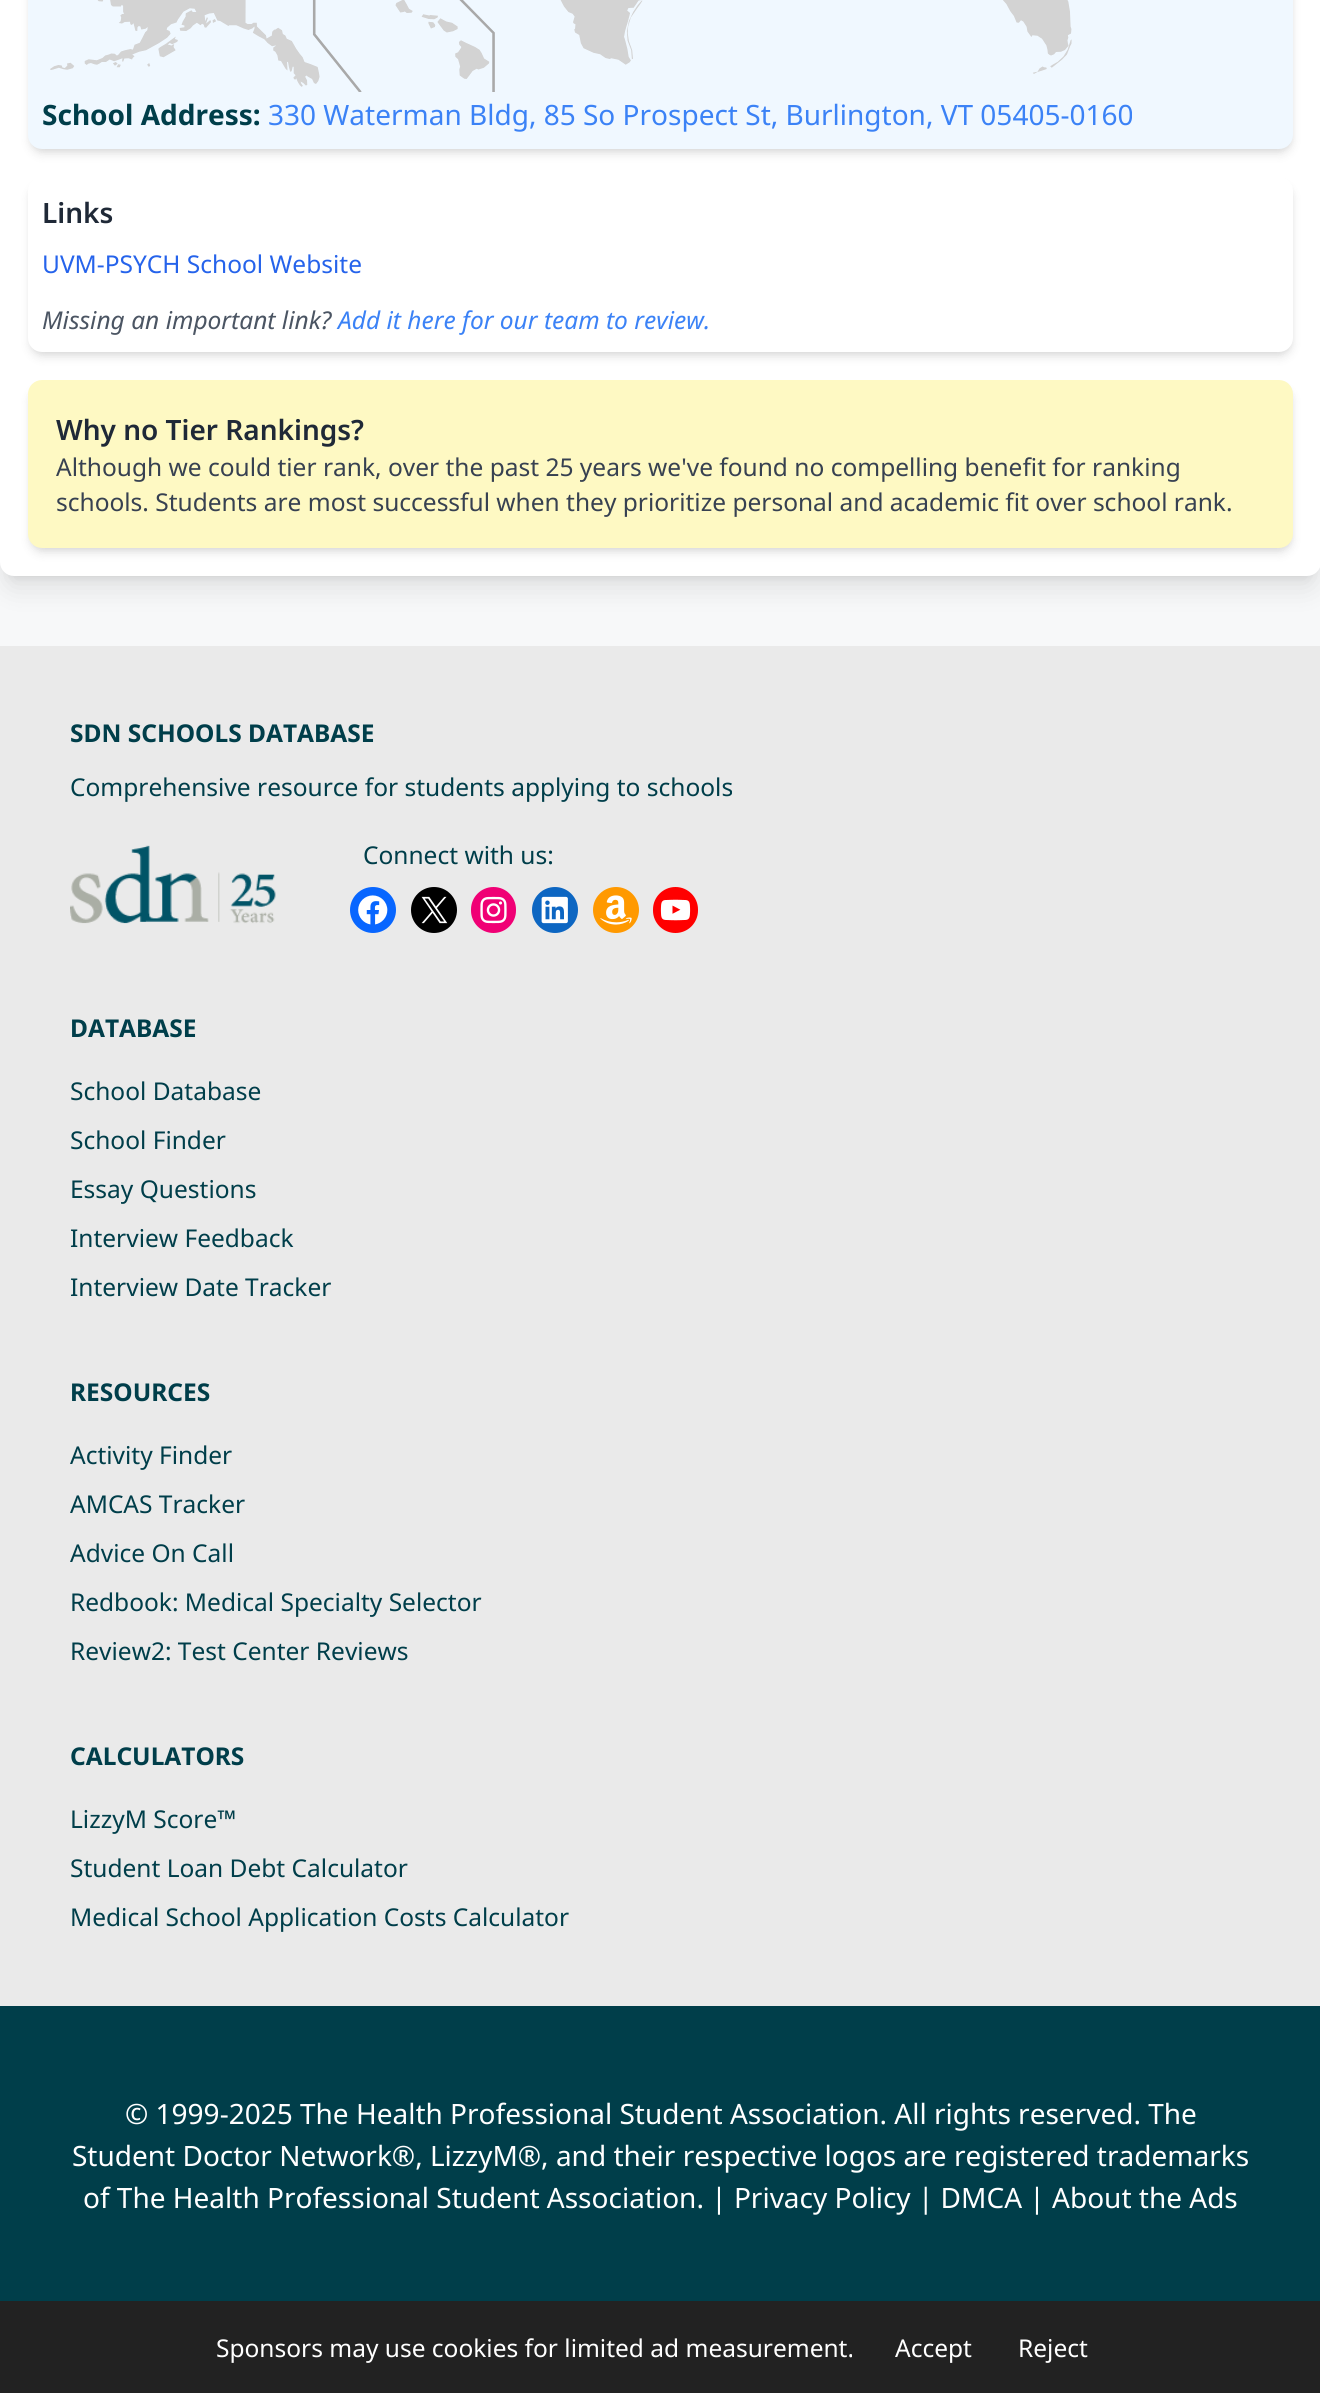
import math
import cairo

surface = cairo.ImageSurface(cairo.FORMAT_RGB24, 1320, 2393)
ctx = cairo.Context(surface)
options = cairo.FontOptions()
options.set_hint_metrics(cairo.HINT_METRICS_OFF)
options.set_hint_style(cairo.HINT_STYLE_NONE)
ctx.set_font_options(options)
ctx.set_miter_limit(4)


def set_color(code):
    ctx.set_source_rgb(*(v / 255 for v in bytes.fromhex(code[-6:])))


def draw_text(x, y, s, family, size, color, bold=False, italic=False):
    ctx.select_font_face(family, cairo.FONT_SLANT_ITALIC if italic else cairo.FONT_SLANT_NORMAL, cairo.FONT_WEIGHT_BOLD if bold else cairo.FONT_WEIGHT_NORMAL)
    ctx.set_font_size(size)
    set_color(color)
    ctx.move_to(x, y)
    ctx.show_text(s)


def fill_rect(x, y, w, h, color):
    set_color(color)
    ctx.rectangle(x, y, w, h)
    ctx.fill()


def rounded_rect(x, y, w, h, r):
    ctx.new_sub_path()
    for i, (u, v) in enumerate([(x + w - r, y + h - r), (x + r, y + h - r), (x + r, y + r), (x + w - r, y + r)]):
        ctx.arc(u, v, r, i * math.pi / 2, (i + 1) * math.pi / 2)
    ctx.close_path()


def draw_shadow(x, y, w, h, r, blur, alpha):
    ctx.push_group_with_content(cairo.CONTENT_ALPHA)
    ctx.set_operator(cairo.OPERATOR_SOURCE)
    for i in range(15, -16, -2):
        e = blur * i / 6
        if min(w, h) + 2 * e > 0:
            ctx.set_source_rgba(0, 0, 0, alpha * math.erfc((i - 1) / 8.5) / 2)
            rounded_rect(x - e, y - e, w + 2 * e, h + 2 * e, max(0, min(r + e + blur * .6, min(w, h) / 2 + e)))
            ctx.fill()
    ctx.mask(ctx.pop_group())


def draw_image(path, x, y, w, h):
    ctx.save()
    ctx.set_source_surface(cairo.ImageSurface.create_from_png(path), x, y)
    ctx.rectangle(x, y, w, h)
    ctx.fill()
    ctx.restore()


set_color("#f7f8f9")
ctx.paint()
set_color("#000000")
draw_shadow(7, -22, 1307, 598, 7, 5, 0.1)
draw_shadow(5, -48, 1311, 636, 9, 13, 0.1)
set_color("#ffffff")
rounded_rect(0, -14, 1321, 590, 14)
ctx.fill()
set_color("#000000")
draw_shadow(32, -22, 1258, 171, 11, 3.5, 0.1)
draw_shadow(30, -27, 1262, 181, 12, 5, 0.1)
set_color("#f0f8ff")
rounded_rect(28, -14, 1265, 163, 14)
ctx.fill()
draw_image("assets/img1.png", 50, 0, 1022, 92)
draw_text(42, 125, "School Address:", "Noto Sans", 28, "#003e4a", bold=True)
draw_text(268, 125, "330 Waterman Bldg, 85 So Prospect St, Burlington, VT 05405-0160", "Noto Sans", 28, "#3b82f6")
set_color("#000000")
draw_shadow(32, 184, 1258, 168, 11, 3.5, 0.1)
draw_shadow(30, 186, 1262, 171, 12, 5, 0.1)
set_color("#ffffff")
rounded_rect(28, 177, 1265, 175, 14)
ctx.fill()
draw_text(42, 223, "Links", "Noto Sans SemiBold", 28, "#1f2937")
draw_text(42, 273, "UVM-PSYCH School Website", "Noto Sans", 24.5, "#2563eb")
draw_text(42, 329, "Missing an important link?", "Noto Sans", 24.5, "#4b5563", italic=True)
draw_text(338, 329, "Add it here for our team to review.", "Noto Sans", 24.5, "#3b82f6", italic=True)
set_color("#000000")
draw_shadow(32, 387, 1258, 161, 11, 3.5, 0.1)
draw_shadow(30, 389, 1262, 164, 12, 5, 0.1)
set_color("#fef9c3")
rounded_rect(28, 380, 1265, 168, 14)
ctx.fill()
draw_text(56, 440, "Why no Tier Rankings?", "Noto Sans SemiBold", 28, "#1f2937")
draw_text(56, 476, "Although we could tier rank, over the past 25 years we've found no compelling benefit for ranking", "Noto Sans", 24.5, "#374151")
draw_text(56, 511, "schools. Students are most successful when they prioritize personal and academic fit over school rank.", "Noto Sans", 24.5, "#374151")
fill_rect(0, 646, 1320, 1360, "#eaeaea")
draw_text(70, 742, "SDN SCHOOLS DATABASE", "Noto Sans", 24.5, "#003e4a", bold=True)
draw_text(70, 796, "Comprehensive resource for students applying to schools", "Noto Sans", 24.5, "#003e4a")
draw_image("assets/img2.png", 70, 845, 206, 79)
draw_text(363, 864, "Connect with us:", "Noto Sans", 24.5, "#003e4a")
set_color("#0866ff")
ctx.new_path()
ctx.arc(373, 910, 23, 0, 2 * math.pi)
ctx.fill()
draw_image("assets/img3.png", 358, 895, 30, 30)
set_color("#000000")
ctx.arc(434, 910, 23, 0, 2 * math.pi)
ctx.fill()
draw_image("assets/img4.png", 421, 896, 27, 28)
set_color("#f00075")
rounded_rect(471, 887, 45, 46, 22.5)
ctx.fill()
draw_image("assets/img5.png", 480, 896, 27, 28)
set_color("#0d66c2")
ctx.arc(555, 910, 23, 0, 2 * math.pi)
ctx.fill()
draw_image("assets/img6.png", 541, 896, 27, 28)
set_color("#ff9900")
ctx.arc(616, 910, 23, 0, 2 * math.pi)
ctx.fill()
draw_image("assets/img7.png", 600, 895, 32, 30)
set_color("#ff0000")
rounded_rect(653, 887, 45, 46, 22.5)
ctx.fill()
draw_image("assets/img8.png", 660, 899, 31, 22)
draw_text(70, 1037, "DATABASE", "Noto Sans", 24.5, "#003e4a", bold=True)
draw_text(70, 1100, "School Database", "Noto Sans", 24.5, "#003e4a")
draw_text(70, 1149, "School Finder", "Noto Sans", 24.5, "#003e4a")
draw_text(70, 1198, "Essay Questions", "Noto Sans", 24.5, "#003e4a")
draw_text(70, 1247, "Interview Feedback", "Noto Sans", 24.5, "#003e4a")
draw_text(70, 1296, "Interview Date Tracker", "Noto Sans", 24.5, "#003e4a")
draw_text(70, 1401, "RESOURCES", "Noto Sans", 24.5, "#003e4a", bold=True)
draw_text(70, 1464, "Activity Finder", "Noto Sans", 24.5, "#003e4a")
draw_text(70, 1513, "AMCAS Tracker", "Noto Sans", 24.5, "#003e4a")
draw_text(70, 1562, "Advice On Call", "Noto Sans", 24.5, "#003e4a")
draw_text(70, 1611, "Redbook: Medical Specialty Selector", "Noto Sans", 24.5, "#003e4a")
draw_text(70, 1660, "Review2: Test Center Reviews", "Noto Sans", 24.5, "#003e4a")
draw_text(70, 1765, "CALCULATORS", "Noto Sans", 24.5, "#003e4a", bold=True)
draw_text(70, 1828, "LizzyM Score™", "Noto Sans", 24.5, "#003e4a")
draw_text(70, 1877, "Student Loan Debt Calculator", "Noto Sans", 24.5, "#003e4a")
draw_text(70, 1926, "Medical School Application Costs Calculator", "Noto Sans", 24.5, "#003e4a")
fill_rect(0, 2006, 1320, 295, "#003e4a")
draw_text(125, 2124, "© 1999-2025 The Health Professional Student Association. All rights reserved. The", "Noto Sans", 28, "#ffffff")
draw_text(72, 2166, "Student Doctor Network®, LizzyM®, and their respective logos are registered trademarks", "Noto Sans", 28, "#ffffff")
draw_text(83, 2208, "of The Health Professional Student Association. | Privacy Policy | DMCA | About the Ads", "Noto Sans", 28, "#ffffff")
fill_rect(0, 2301, 1320, 92, "#222222")
draw_text(216, 2357, "Sponsors may use cookies for limited ad measurement.", "Noto Sans", 24.5, "#ffffff")
draw_text(895, 2357, "Accept", "Noto Sans", 24.5, "#ffffff")
draw_text(1018, 2357, "Reject", "Noto Sans", 24.5, "#ffffff")
surface.write_to_png("output.png")
